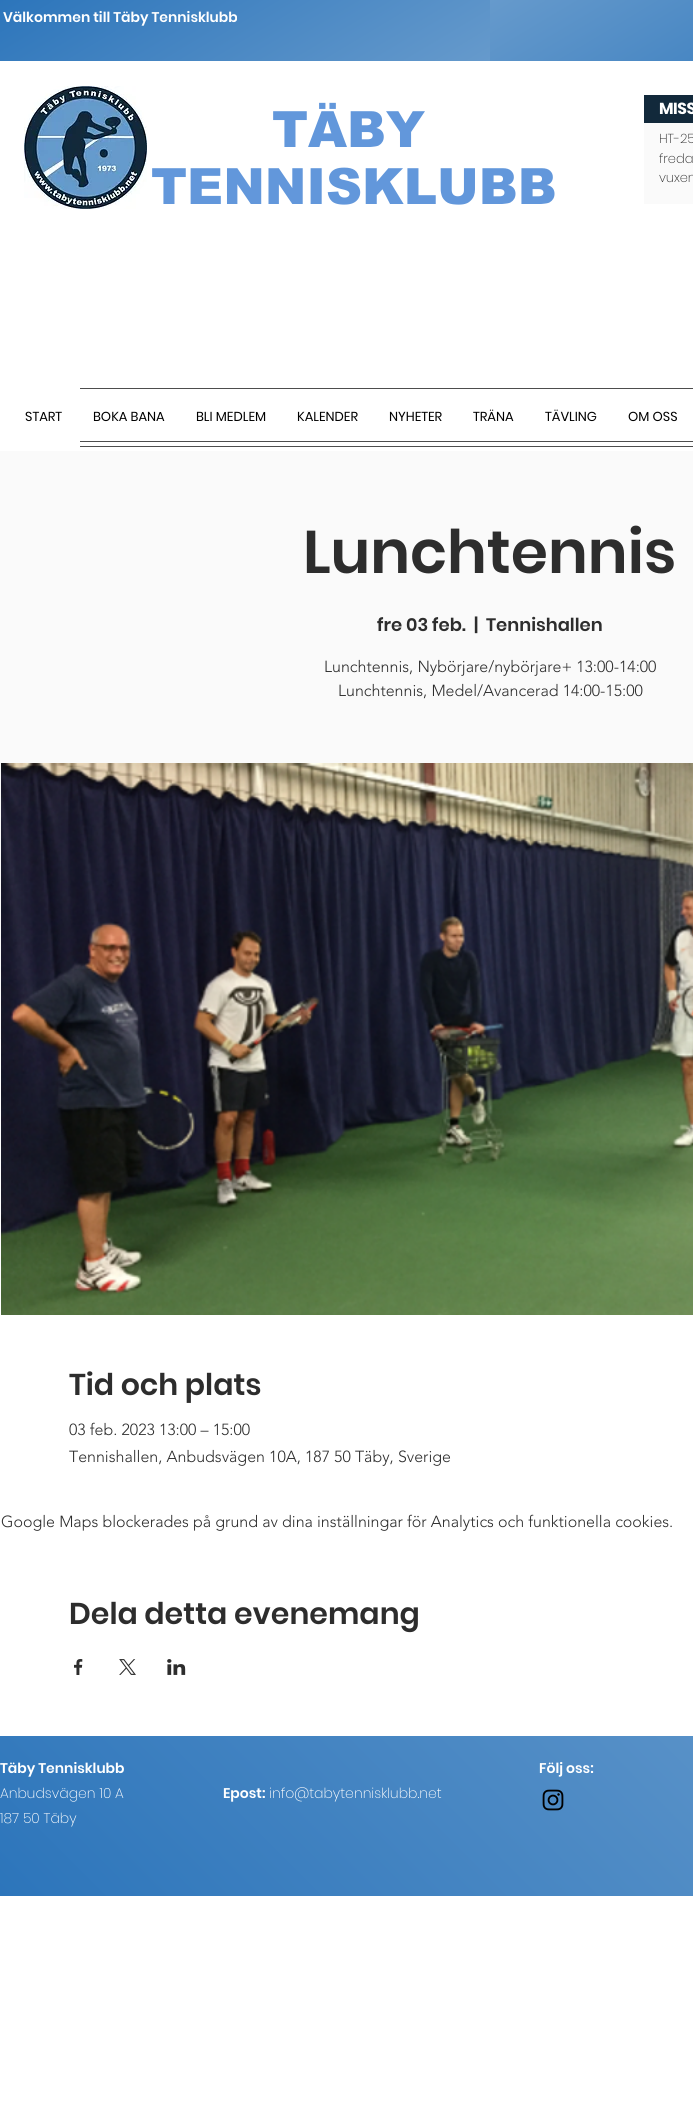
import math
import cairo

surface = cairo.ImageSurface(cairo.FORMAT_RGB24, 693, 2113)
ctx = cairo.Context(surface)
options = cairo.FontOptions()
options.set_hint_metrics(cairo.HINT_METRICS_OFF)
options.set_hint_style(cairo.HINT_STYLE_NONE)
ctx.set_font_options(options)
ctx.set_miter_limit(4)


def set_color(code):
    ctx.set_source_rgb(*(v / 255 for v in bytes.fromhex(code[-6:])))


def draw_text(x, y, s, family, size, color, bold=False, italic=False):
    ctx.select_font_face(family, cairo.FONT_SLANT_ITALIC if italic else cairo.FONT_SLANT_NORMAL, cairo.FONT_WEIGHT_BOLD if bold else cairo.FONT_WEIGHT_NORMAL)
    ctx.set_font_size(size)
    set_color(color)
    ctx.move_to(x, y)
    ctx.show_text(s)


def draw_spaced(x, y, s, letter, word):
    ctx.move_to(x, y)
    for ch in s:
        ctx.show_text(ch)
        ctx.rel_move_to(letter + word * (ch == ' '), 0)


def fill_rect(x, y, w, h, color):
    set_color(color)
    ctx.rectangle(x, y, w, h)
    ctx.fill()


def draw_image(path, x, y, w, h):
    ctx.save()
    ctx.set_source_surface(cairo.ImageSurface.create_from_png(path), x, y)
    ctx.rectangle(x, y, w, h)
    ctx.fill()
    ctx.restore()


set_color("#ffffff")
ctx.paint()
gradient = cairo.LinearGradient(323, 161, 167, -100)
gradient.add_color_stop_rgba(0, 0.4, 0.604, 0.8, 1)
gradient.add_color_stop_rgba(1, 0.173, 0.459, 0.733, 1)
ctx.set_source(gradient)
ctx.rectangle(0, 0, 490, 61)
ctx.fill()
draw_text(3, 22, "Välkommen till Täby Tennisklubb", "Poppins SemiBold", 14, "#ffffff")
gradient = cairo.LinearGradient(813, 161, 657, -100)
gradient.add_color_stop_rgba(0, 0.173, 0.459, 0.733, 1)
gradient.add_color_stop_rgba(1, 0.4, 0.604, 0.8, 1)
ctx.set_source(gradient)
ctx.rectangle(490, 0, 203, 61)
ctx.fill()
draw_image("assets/img1.png", 24, 86, 123, 123)
draw_text(272, 147, "TÄBY", "arial Black", 50, "#6297db")
fill_rect(644, 95, 49, 28, "#12293b")
ctx.select_font_face("Poppins", cairo.FONT_SLANT_NORMAL, cairo.FONT_WEIGHT_BOLD)
ctx.set_font_size(16)
set_color("#ffffff")
draw_spaced(659, 114, "MISS", -0.5, 0)
draw_text(151, 204, "TENNISKLUBB", "arial Black", 50, "#6297db")
fill_rect(644, 123, 49, 81, "#fafafa")
draw_text(659, 143, "HT-25", "Poppins ExtraLight", 13, "#2d2d2d")
draw_text(659, 163, "freda", "Poppins ExtraLight", 13, "#2d2d2d")
draw_text(659, 182, "vuxen", "Poppins ExtraLight", 13, "#2d2d2d")
fill_rect(80, 388, 613, 1, "#4d4d4d")
draw_text(25, 421, "START", "Poppins", 13, "#000000")
draw_text(93, 421, "BOKA BANA", "Poppins", 13, "#000000")
draw_text(196, 421, "BLI MEDLEM", "Poppins", 13, "#000000")
draw_text(297, 421, "KALENDER", "Poppins", 13, "#000000")
draw_text(389, 421, "NYHETER", "Poppins", 13, "#000000")
draw_text(473, 421, "TRÄNA", "Poppins", 13, "#000000")
draw_text(545, 421, "TÄVLING", "Poppins", 13, "#000000")
draw_text(628, 421, "OM OSS", "Poppins", 13, "#000000")
fill_rect(80, 441, 613, 1, "#4d4d4d")
fill_rect(80, 446, 613, 1, "#4d4d4d")
fill_rect(0, 451, 693, 588, "#fafafa")
draw_text(303, 573, "Lunchtennis", "Poppins SemiBold", 60, "#2d2d2d")
draw_text(377, 631, "fre 03 feb.", "Poppins SemiBold", 18, "#2d2d2d")
draw_text(474, 631, "|", "Poppins SemiBold", 18, "#2d2d2d")
draw_text(486, 631, "Tennishallen", "Poppins SemiBold", 18, "#2d2d2d")
draw_text(324, 672, "Lunchtennis, Nybörjare/nybörjare+ 13:00-14:00", "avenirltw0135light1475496 Light", 16, "#2d2d2d")
draw_text(338, 696, "Lunchtennis, Medel/Avancerad 14:00-15:00", "avenirltw0135light1475496 Light", 16, "#2d2d2d")
draw_image("assets/img2.png", 1, 763, 692, 552)
draw_text(69, 1395, "Tid och plats", "Poppins SemiBold", 30, "#2d2d2d")
draw_text(69, 1435, "03 feb. 2023 13:00 – 15:00", "avenirltw0135light1475496 Light", 16, "#2d2d2d")
draw_text(69, 1462, "Tennishallen, Anbudsvägen 10A, 187 50 Täby, Sverige", "avenirltw0135light1475496 Light", 16, "#2d2d2d")
draw_text(1, 1527, "Google Maps blockerades på grund av dina inställningar för Analytics och funktionella cookies.", "avenirltw0135light1475496 Light", 16, "#2d2d2d")
draw_text(69, 1624, "Dela detta evenemang", "Poppins SemiBold", 30, "#2d2d2d")
draw_image("assets/img3.png", 74, 1659, 9, 16)
draw_image("assets/img4.png", 119, 1659, 17, 16)
draw_image("assets/img5.png", 167, 1659, 19, 16)
gradient = cairo.LinearGradient(205, 2101, 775, 1531)
gradient.add_color_stop_rgba(0, 0.173, 0.459, 0.733, 1)
gradient.add_color_stop_rgba(1, 0.4, 0.604, 0.8, 1)
ctx.set_source(gradient)
ctx.rectangle(0, 1736, 693, 160)
ctx.fill()
draw_text(0, 1773, "Täby Tennisklubb", "Poppins SemiBold", 14, "#ffffff")
draw_text(0, 1798, "Anbudsvägen 10 A", "Poppins ExtraLight", 14, "#ffffff")
draw_text(0, 1823, "187 50 Täby", "Poppins ExtraLight", 14, "#ffffff")
draw_text(539, 1773, "Följ oss:", "Poppins SemiBold", 14, "#ffffff")
draw_text(223, 1798, "Epost:", "Poppins SemiBold", 14, "#ffffff")
draw_text(269, 1798, "info@tabytennisklubb.net", "Poppins ExtraLight", 14, "#ffffff")
draw_image("assets/img6.png", 542, 1789, 22, 22)
surface.write_to_png("output.png")
